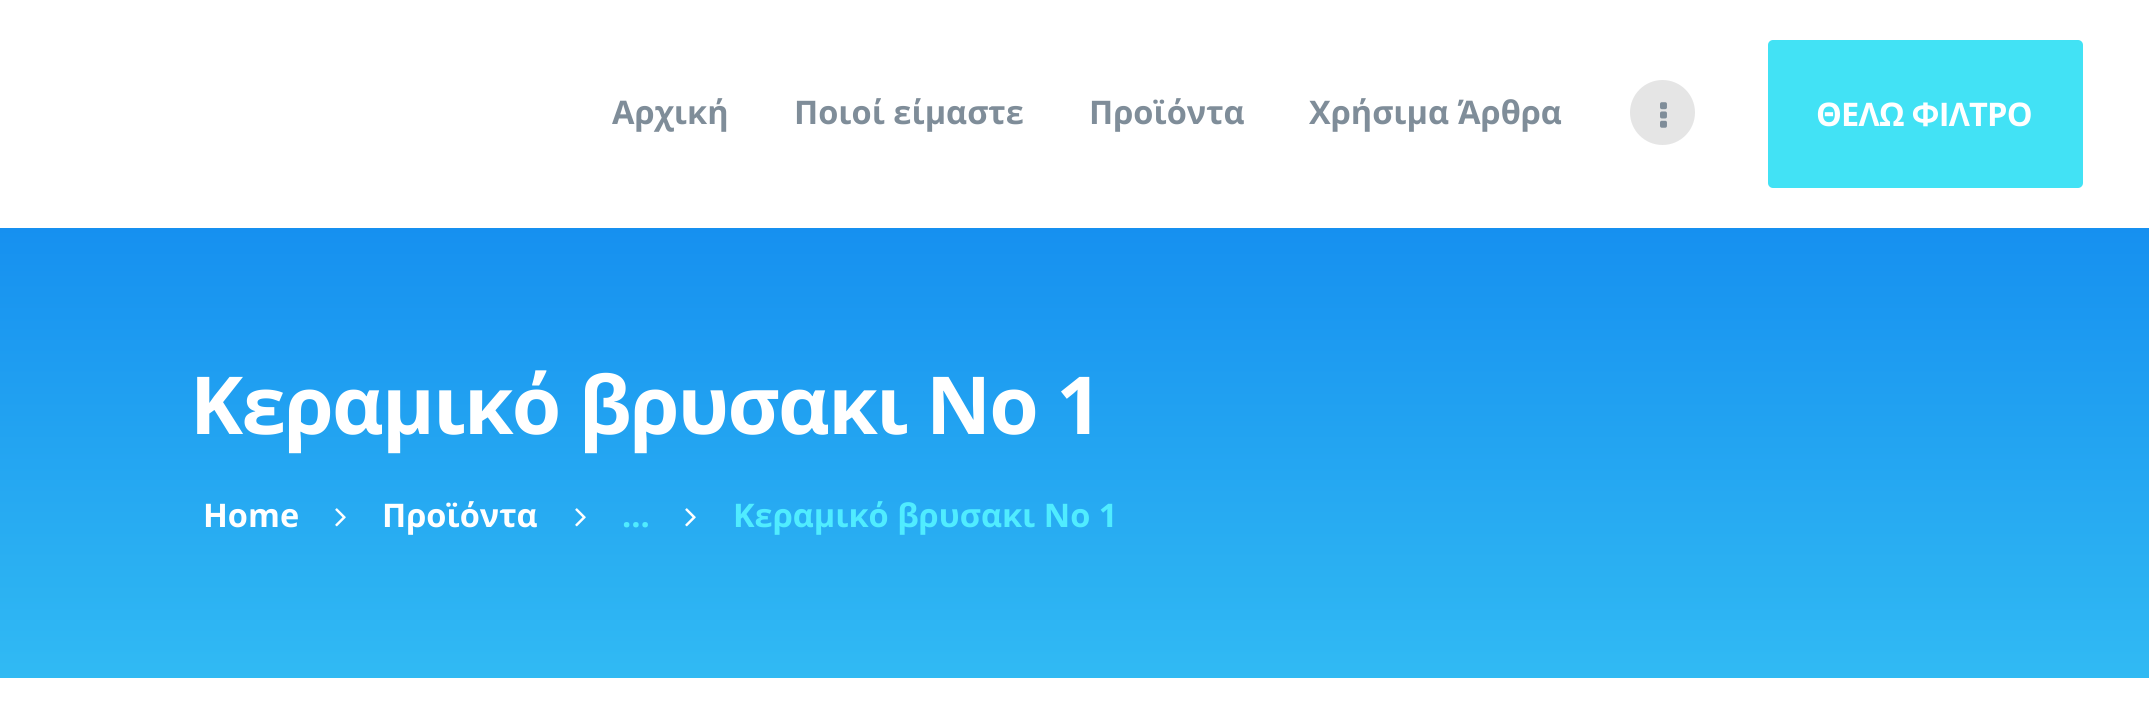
import math
import cairo

surface = cairo.ImageSurface(cairo.FORMAT_RGB24, 2149, 715)
ctx = cairo.Context(surface)
options = cairo.FontOptions()
options.set_hint_metrics(cairo.HINT_METRICS_OFF)
options.set_hint_style(cairo.HINT_STYLE_NONE)
ctx.set_font_options(options)
ctx.set_miter_limit(4)


def set_color(code):
    ctx.set_source_rgb(*(v / 255 for v in bytes.fromhex(code[-6:])))


def draw_text(x, y, s, family, size, color, bold=False, italic=False):
    ctx.select_font_face(family, cairo.FONT_SLANT_ITALIC if italic else cairo.FONT_SLANT_NORMAL, cairo.FONT_WEIGHT_BOLD if bold else cairo.FONT_WEIGHT_NORMAL)
    ctx.set_font_size(size)
    set_color(color)
    ctx.move_to(x, y)
    ctx.show_text(s)


def draw_spaced(x, y, s, letter, word):
    ctx.move_to(x, y)
    for ch in s:
        ctx.show_text(ch)
        ctx.rel_move_to(letter + word * (ch == ' '), 0)


def rounded_rect(x, y, w, h, r):
    ctx.new_sub_path()
    for i, (u, v) in enumerate([(x + w - r, y + h - r), (x + r, y + h - r), (x + r, y + r), (x + w - r, y + r)]):
        ctx.arc(u, v, r, i * math.pi / 2, (i + 1) * math.pi / 2)
    ctx.close_path()


def draw_image(path, x, y, w, h):
    ctx.save()
    ctx.set_source_surface(cairo.ImageSurface.create_from_png(path), x, y)
    ctx.rectangle(x, y, w, h)
    ctx.fill()
    ctx.restore()


set_color("#ffffff")
ctx.paint()
draw_text(612, 124, "Αρχική", "Open Sans", 32.5, "#7f8d99", bold=True)
draw_text(794, 124, "Ποιοί είμαστε", "Open Sans", 32.5, "#7f8d99", bold=True)
draw_text(1089, 124, "Προϊόντα", "Open Sans", 32.5, "#7f8d99", bold=True)
draw_text(1309, 124, "Χρήσιμα Άρθρα", "Open Sans", 32.5, "#7f8d99", bold=True)
set_color("#e5e5e5")
ctx.new_path()
ctx.arc(1662.5, 112.5, 32.5, 0, 2 * math.pi)
ctx.fill()
draw_image("assets/img1.png", 1660, 102, 7, 26)
gradient = cairo.LinearGradient(1925, -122, 1925, 188)
gradient.add_color_stop_rgba(0, 0.173, 0.725, 0.949, 1)
gradient.add_color_stop_rgba(0.5, 0.259, 0.886, 0.961, 1)
ctx.set_source(gradient)
rounded_rect(1768, 40, 315, 148, 5)
ctx.fill()
set_color("#ffffff")
draw_spaced(1816, 126, "ΘΕΛΩ ΦΙΛΤΡΟ", -0.75, 0)
gradient = cairo.LinearGradient(1075, 678, 1075, 228)
gradient.add_color_stop_rgba(0, 0.192, 0.729, 0.953, 1)
gradient.add_color_stop_rgba(1, 0.086, 0.565, 0.941, 1)
ctx.set_source(gradient)
ctx.rectangle(0, 228, 2149, 450)
ctx.fill()
ctx.set_font_size(80)
set_color("#ffffff")
draw_spaced(190, 434, "Κεραμικό βρυσακι No 1", -1.7, 0)
draw_text(203, 527, "Home", "Open Sans", 32.5, "#ffffff", bold=True)
draw_image("assets/img2.png", 335, 508, 11, 19)
draw_text(382, 527, "Προϊόντα", "Open Sans", 32.5, "#ffffff", bold=True)
draw_image("assets/img2.png", 575, 508, 11, 19)
draw_text(622, 527, "...", "Open Sans", 32.5, "#50ecff", bold=True)
draw_image("assets/img2.png", 685, 508, 11, 19)
draw_text(733, 527, "Κεραμικό βρυσακι No 1", "Open Sans", 32.5, "#50ecff", bold=True)
surface.write_to_png("output.png")
